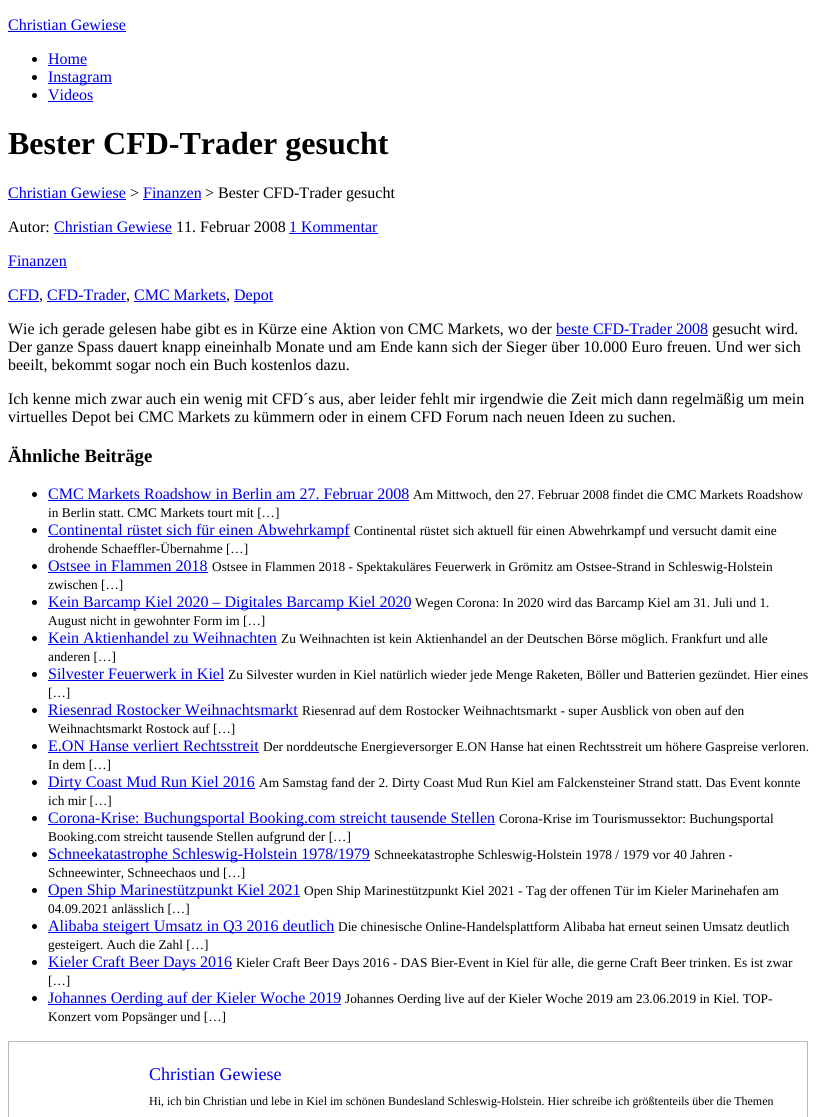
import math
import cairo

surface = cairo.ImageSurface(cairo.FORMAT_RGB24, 816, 1117)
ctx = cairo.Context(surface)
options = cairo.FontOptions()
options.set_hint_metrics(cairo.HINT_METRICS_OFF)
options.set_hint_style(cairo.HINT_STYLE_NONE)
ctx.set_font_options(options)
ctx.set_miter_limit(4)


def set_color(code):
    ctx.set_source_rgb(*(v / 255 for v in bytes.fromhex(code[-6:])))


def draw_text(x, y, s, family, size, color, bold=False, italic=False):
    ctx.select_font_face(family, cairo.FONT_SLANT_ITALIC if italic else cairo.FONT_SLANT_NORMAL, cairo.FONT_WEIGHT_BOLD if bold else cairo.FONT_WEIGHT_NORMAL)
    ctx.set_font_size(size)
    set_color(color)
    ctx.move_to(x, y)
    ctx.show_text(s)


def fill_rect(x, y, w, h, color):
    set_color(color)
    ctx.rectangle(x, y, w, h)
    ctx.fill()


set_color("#ffffff")
ctx.paint()
draw_text(8, 30, "Christian Gewiese", "Liberation Serif", 16, "#0000ee")
fill_rect(8, 31, 118, 1, "#0000ee")
set_color("#000000")
ctx.new_path()
ctx.arc(34.5, 59.5, 2.5, 0, 2 * math.pi)
ctx.fill()
draw_text(48, 64, "Home", "Liberation Serif", 16, "#0000ee")
fill_rect(48, 65, 39, 1, "#0000ee")
set_color("#000000")
ctx.new_path()
ctx.arc(34.5, 77.5, 2.5, 0, 2 * math.pi)
ctx.fill()
fill_rect(48, 83, 64, 1, "#0000ee")
draw_text(48, 82, "Instagram", "Liberation Serif", 16, "#0000ee")
set_color("#000000")
ctx.new_path()
ctx.arc(34.5, 95.5, 2.5, 0, 2 * math.pi)
ctx.fill()
draw_text(48, 100, "Videos", "Liberation Serif", 16, "#0000ee")
fill_rect(48, 101, 45, 1, "#0000ee")
draw_text(8, 154, "Bester CFD-Trader gesucht", "Liberation Serif", 32, "#000000", bold=True)
draw_text(8, 198, "Christian Gewiese", "Liberation Serif", 16, "#0000ee")
fill_rect(8, 199, 118, 1, "#0000ee")
draw_text(130, 198, ">", "Liberation Serif", 16, "#000000")
draw_text(143, 198, "Finanzen", "Liberation Serif", 16, "#0000ee")
fill_rect(143, 199, 58, 1, "#0000ee")
draw_text(205, 198, "> Bester CFD-Trader gesucht", "Liberation Serif", 16, "#000000")
draw_text(8, 232, "Autor:", "Liberation Serif", 16, "#000000")
draw_text(54, 232, "Christian Gewiese", "Liberation Serif", 16, "#0000ee")
fill_rect(54, 233, 118, 1, "#0000ee")
draw_text(176, 232, "11. Februar 2008", "Liberation Serif", 16, "#000000")
draw_text(289, 232, "1 Kommentar", "Liberation Serif", 16, "#0000ee")
fill_rect(289, 233, 89, 1, "#0000ee")
draw_text(8, 266, "Finanzen", "Liberation Serif", 16, "#0000ee")
fill_rect(8, 267, 59, 1, "#0000ee")
draw_text(8, 300, "CFD", "Liberation Serif", 16, "#0000ee")
draw_text(39, 300, ",", "Liberation Serif", 16, "#000000")
fill_rect(8, 301, 31, 1, "#0000ee")
draw_text(47, 300, "CFD-Trader", "Liberation Serif", 16, "#0000ee")
draw_text(126, 300, ",", "Liberation Serif", 16, "#000000")
fill_rect(47, 301, 79, 1, "#0000ee")
draw_text(134, 300, "CMC Markets", "Liberation Serif", 16, "#0000ee")
draw_text(226, 300, ",", "Liberation Serif", 16, "#000000")
fill_rect(134, 301, 92, 1, "#0000ee")
fill_rect(234, 301, 39, 1, "#0000ee")
draw_text(234, 300, "Depot", "Liberation Serif", 16, "#0000ee")
draw_text(8, 334, "Wie ich gerade gelesen habe gibt es in Kürze eine Aktion von CMC Markets, wo der", "Liberation Serif", 16, "#000000")
draw_text(556, 334, "beste CFD-Trader 2008", "Liberation Serif", 16, "#0000ee")
fill_rect(556, 335, 152, 1, "#0000ee")
draw_text(712, 334, "gesucht wird.", "Liberation Serif", 16, "#000000")
draw_text(8, 352, "Der ganze Spass dauert knapp eineinhalb Monate und am Ende kann sich der Sieger über 10.000 Euro freuen. Und wer sich", "Liberation Serif", 16, "#000000")
draw_text(8, 370, "beeilt, bekommt sogar noch ein Buch kostenlos dazu.", "Liberation Serif", 16, "#000000")
draw_text(8, 404, "Ich kenne mich zwar auch ein wenig mit CFD´s aus, aber leider fehlt mir irgendwie die Zeit mich dann regelmäßig um mein", "Liberation Serif", 16, "#000000")
draw_text(8, 422, "virtuelles Depot bei CMC Markets zu kümmern oder in einem CFD Forum nach neuen Ideen zu suchen.", "Liberation Serif", 16, "#000000")
draw_text(8, 462, "Ähnliche Beiträge", "Liberation Serif", 18.75, "#000000", bold=True)
ctx.new_path()
ctx.arc(34.5, 494.5, 2.5, 0, 2 * math.pi)
ctx.fill()
draw_text(48, 499, "CMC Markets Roadshow in Berlin am 27. Februar 2008", "Liberation Serif", 16, "#0000ee")
fill_rect(48, 500, 361, 1, "#0000ee")
draw_text(413, 499, "Am Mittwoch, den 27. Februar 2008 findet die CMC Markets Roadshow", "Liberation Serif", 13.35, "#000000")
draw_text(48, 517, "in Berlin statt. CMC Markets tourt mit […]", "Liberation Serif", 13.35, "#000000")
ctx.new_path()
ctx.arc(34.5, 530.5, 2.5, 0, 2 * math.pi)
ctx.fill()
fill_rect(48, 536, 302, 1, "#0000ee")
draw_text(48, 535, "Continental rüstet sich für einen Abwehrkampf", "Liberation Serif", 16, "#0000ee")
draw_text(354, 535, "Continental rüstet sich aktuell für einen Abwehrkampf und versucht damit eine", "Liberation Serif", 13.35, "#000000")
draw_text(48, 553, "drohende Schaeffler-Übernahme […]", "Liberation Serif", 13.35, "#000000")
ctx.new_path()
ctx.arc(34.5, 566.5, 2.5, 0, 2 * math.pi)
ctx.fill()
draw_text(48, 571, "Ostsee in Flammen 2018", "Liberation Serif", 16, "#0000ee")
fill_rect(48, 572, 160, 1, "#0000ee")
draw_text(212, 571, "Ostsee in Flammen 2018 - Spektakuläres Feuerwerk in Grömitz am Ostsee-Strand in Schleswig-Holstein", "Liberation Serif", 13.35, "#000000")
draw_text(48, 589, "zwischen […]", "Liberation Serif", 13.35, "#000000")
ctx.new_path()
ctx.arc(34.5, 602.5, 2.5, 0, 2 * math.pi)
ctx.fill()
fill_rect(48, 608, 363, 1, "#0000ee")
draw_text(48, 607, "Kein Barcamp Kiel 2020 – Digitales Barcamp Kiel 2020", "Liberation Serif", 16, "#0000ee")
draw_text(415, 607, "Wegen Corona: In 2020 wird das Barcamp Kiel am 31. Juli und 1.", "Liberation Serif", 13.35, "#000000")
draw_text(48, 625, "August nicht in gewohnter Form im […]", "Liberation Serif", 13.35, "#000000")
ctx.new_path()
ctx.arc(34.5, 638.5, 2.5, 0, 2 * math.pi)
ctx.fill()
draw_text(48, 643, "Kein Aktienhandel zu Weihnachten", "Liberation Serif", 16, "#0000ee")
fill_rect(48, 644, 229, 1, "#0000ee")
draw_text(281, 643, "Zu Weihnachten ist kein Aktienhandel an der Deutschen Börse möglich. Frankfurt und alle", "Liberation Serif", 13.35, "#000000")
draw_text(48, 661, "anderen […]", "Liberation Serif", 13.35, "#000000")
ctx.new_path()
ctx.arc(34.5, 674.5, 2.5, 0, 2 * math.pi)
ctx.fill()
draw_text(48, 679, "Silvester Feuerwerk in Kiel", "Liberation Serif", 16, "#0000ee")
fill_rect(48, 680, 176, 1, "#0000ee")
draw_text(228, 679, "Zu Silvester wurden in Kiel natürlich wieder jede Menge Raketen, Böller und Batterien gezündet. Hier eines", "Liberation Serif", 13.35, "#000000")
draw_text(48, 697, "[…]", "Liberation Serif", 13.35, "#000000")
ctx.new_path()
ctx.arc(34.5, 710.5, 2.5, 0, 2 * math.pi)
ctx.fill()
draw_text(48, 715, "Riesenrad Rostocker Weihnachtsmarkt", "Liberation Serif", 16, "#0000ee")
fill_rect(48, 716, 250, 1, "#0000ee")
draw_text(302, 715, "Riesenrad auf dem Rostocker Weihnachtsmarkt - super Ausblick von oben auf den", "Liberation Serif", 13.35, "#000000")
draw_text(48, 733, "Weihnachtsmarkt Rostock auf […]", "Liberation Serif", 13.35, "#000000")
ctx.new_path()
ctx.arc(34.5, 746.5, 2.5, 0, 2 * math.pi)
ctx.fill()
draw_text(48, 751, "E.ON Hanse verliert Rechtsstreit", "Liberation Serif", 16, "#0000ee")
fill_rect(48, 752, 211, 1, "#0000ee")
draw_text(263, 751, "Der norddeutsche Energieversorger E.ON Hanse hat einen Rechtsstreit um höhere Gaspreise verloren.", "Liberation Serif", 13.35, "#000000")
draw_text(48, 769, "In dem […]", "Liberation Serif", 13.35, "#000000")
ctx.new_path()
ctx.arc(34.5, 782.5, 2.5, 0, 2 * math.pi)
ctx.fill()
fill_rect(48, 788, 207, 1, "#0000ee")
draw_text(48, 787, "Dirty Coast Mud Run Kiel 2016", "Liberation Serif", 16, "#0000ee")
draw_text(259, 787, "Am Samstag fand der 2. Dirty Coast Mud Run Kiel am Falckensteiner Strand statt. Das Event konnte", "Liberation Serif", 13.35, "#000000")
draw_text(48, 805, "ich mir […]", "Liberation Serif", 13.35, "#000000")
ctx.new_path()
ctx.arc(34.5, 818.5, 2.5, 0, 2 * math.pi)
ctx.fill()
fill_rect(48, 824, 447, 1, "#0000ee")
draw_text(48, 823, "Corona-Krise: Buchungsportal Booking.com streicht tausende Stellen", "Liberation Serif", 16, "#0000ee")
draw_text(499, 823, "Corona-Krise im Tourismussektor: Buchungsportal", "Liberation Serif", 13.35, "#000000")
draw_text(48, 841, "Booking.com streicht tausende Stellen aufgrund der […]", "Liberation Serif", 13.35, "#000000")
ctx.new_path()
ctx.arc(34.5, 854.5, 2.5, 0, 2 * math.pi)
ctx.fill()
fill_rect(48, 860, 322, 1, "#0000ee")
draw_text(48, 859, "Schneekatastrophe Schleswig-Holstein 1978/1979", "Liberation Serif", 16, "#0000ee")
draw_text(374, 859, "Schneekatastrophe Schleswig-Holstein 1978 / 1979 vor 40 Jahren -", "Liberation Serif", 13.35, "#000000")
draw_text(48, 877, "Schneewinter, Schneechaos und […]", "Liberation Serif", 13.35, "#000000")
ctx.new_path()
ctx.arc(34.5, 890.5, 2.5, 0, 2 * math.pi)
ctx.fill()
fill_rect(48, 896, 252, 1, "#0000ee")
draw_text(48, 895, "Open Ship Marinestützpunkt Kiel 2021", "Liberation Serif", 16, "#0000ee")
draw_text(304, 895, "Open Ship Marinestützpunkt Kiel 2021 - Tag der offenen Tür im Kieler Marinehafen am", "Liberation Serif", 13.35, "#000000")
draw_text(48, 913, "04.09.2021 anlässlich […]", "Liberation Serif", 13.35, "#000000")
ctx.new_path()
ctx.arc(34.5, 926.5, 2.5, 0, 2 * math.pi)
ctx.fill()
fill_rect(48, 932, 286, 1, "#0000ee")
draw_text(48, 931, "Alibaba steigert Umsatz in Q3 2016 deutlich", "Liberation Serif", 16, "#0000ee")
draw_text(338, 931, "Die chinesische Online-Handelsplattform Alibaba hat erneut seinen Umsatz deutlich", "Liberation Serif", 13.35, "#000000")
draw_text(48, 949, "gesteigert. Auch die Zahl […]", "Liberation Serif", 13.35, "#000000")
ctx.new_path()
ctx.arc(34.5, 962.5, 2.5, 0, 2 * math.pi)
ctx.fill()
fill_rect(48, 968, 184, 1, "#0000ee")
draw_text(48, 967, "Kieler Craft Beer Days 2016", "Liberation Serif", 16, "#0000ee")
draw_text(236, 967, "Kieler Craft Beer Days 2016 - DAS Bier-Event in Kiel für alle, die gerne Craft Beer trinken. Es ist zwar", "Liberation Serif", 13.35, "#000000")
draw_text(48, 985, "[…]", "Liberation Serif", 13.35, "#000000")
ctx.new_path()
ctx.arc(34.5, 998.5, 2.5, 0, 2 * math.pi)
ctx.fill()
fill_rect(48, 1004, 293, 1, "#0000ee")
draw_text(48, 1003, "Johannes Oerding auf der Kieler Woche 2019", "Liberation Serif", 16, "#0000ee")
draw_text(345, 1003, "Johannes Oerding live auf der Kieler Woche 2019 am 23.06.2019 in Kiel. TOP-", "Liberation Serif", 13.35, "#000000")
draw_text(48, 1021, "Konzert vom Popsänger und […]", "Liberation Serif", 13.35, "#000000")
ctx.rectangle(8.5, 1041.5, 799, 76)
set_color("#b1bcb4")
ctx.set_line_width(1)
ctx.stroke()
draw_text(149, 1080, "Christian Gewiese", "Liberation Serif", 18, "#0000ee")
draw_text(149, 1105, "Hi, ich bin Christian und lebe in Kiel im schönen Bundesland Schleswig-Holstein. Hier schreibe ich größtenteils über die Themen", "Liberation Serif", 12, "#000000")
surface.write_to_png("output.png")
